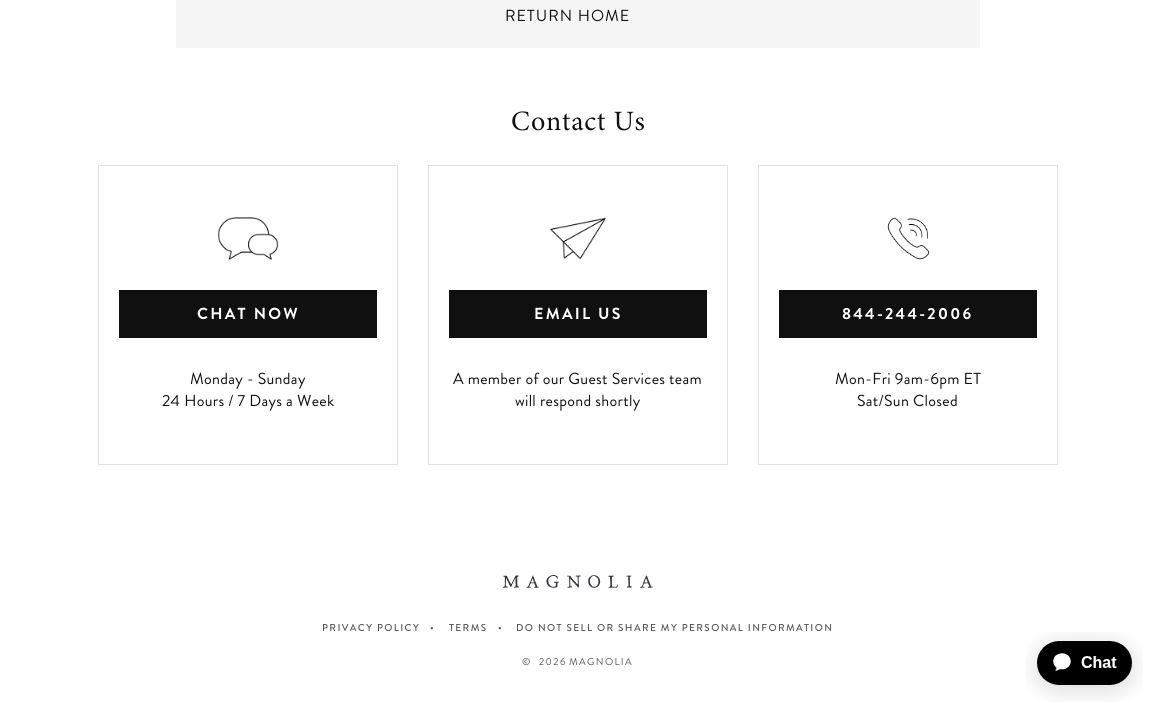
import math
import cairo

surface = cairo.ImageSurface(cairo.FORMAT_RGB24, 1156, 709)
ctx = cairo.Context(surface)
options = cairo.FontOptions()
options.set_hint_metrics(cairo.HINT_METRICS_OFF)
options.set_hint_style(cairo.HINT_STYLE_NONE)
ctx.set_font_options(options)
ctx.set_miter_limit(4)


def set_color(code):
    ctx.set_source_rgb(*(v / 255 for v in bytes.fromhex(code[-6:])))


def draw_spaced(x, y, s, letter, word):
    ctx.move_to(x, y)
    for ch in s:
        ctx.show_text(ch)
        ctx.rel_move_to(letter + word * (ch == ' '), 0)


def fill_rect(x, y, w, h, color):
    set_color(color)
    ctx.rectangle(x, y, w, h)
    ctx.fill()


def draw_image(path, x, y, w, h):
    ctx.save()
    ctx.set_source_surface(cairo.ImageSurface.create_from_png(path), x, y)
    ctx.rectangle(x, y, w, h)
    ctx.fill()
    ctx.restore()


set_color("#ffffff")
ctx.paint()
fill_rect(176, 0, 804, 48, "#f5f5f5")
ctx.select_font_face("Brandon Grotesque")
ctx.set_font_size(16)
set_color("#101010")
draw_spaced(505, 21, "RETURN HOME", 1, 0)
ctx.select_font_face("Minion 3")
ctx.set_font_size(28)
draw_spaced(511, 130, "Contact Us", 0.75, 0)
ctx.rectangle(98.5, 165.5, 299, 299)
set_color("#e2e2e3")
ctx.set_line_width(1)
ctx.stroke()
draw_image("assets/img1.png", 217, 217, 62, 43)
fill_rect(119, 290, 258, 48, "#101010")
ctx.select_font_face("Brandon Grotesque", cairo.FONT_SLANT_NORMAL, cairo.FONT_WEIGHT_BOLD)
ctx.set_font_size(16)
set_color("#ffffff")
draw_spaced(197, 319, "CHAT NOW", 2.25, 0)
ctx.select_font_face("Brandon Grotesque")
set_color("#101010")
draw_spaced(190, 384, "Monday - Sunday", 0.3, 0)
draw_spaced(162, 406, "24 Hours / 7 Days a Week", 0.3, 0)
ctx.rectangle(428.5, 165.5, 299, 299)
set_color("#e2e2e3")
ctx.stroke()
draw_image("assets/img2.png", 550, 217, 56, 43)
fill_rect(449, 290, 258, 48, "#101010")
ctx.select_font_face("Brandon Grotesque", cairo.FONT_SLANT_NORMAL, cairo.FONT_WEIGHT_BOLD)
set_color("#ffffff")
draw_spaced(534, 319, "EMAIL US", 2.25, 0)
ctx.select_font_face("Brandon Grotesque")
set_color("#101010")
draw_spaced(453, 384, "A member of our Guest Services team", 0.3, 0)
draw_spaced(515, 406, "will respond shortly", 0.3, 0)
ctx.rectangle(758.5, 165.5, 299, 299)
set_color("#e2e2e3")
ctx.stroke()
draw_image("assets/img3.png", 887, 217, 43, 43)
fill_rect(779, 290, 258, 48, "#101010")
ctx.select_font_face("Brandon Grotesque", cairo.FONT_SLANT_NORMAL, cairo.FONT_WEIGHT_BOLD)
set_color("#ffffff")
draw_spaced(842, 319, "844-244-2006", 2.25, 0)
ctx.select_font_face("Brandon Grotesque")
set_color("#101010")
draw_spaced(835, 384, "Mon-Fri 9am-6pm ET", 0.3, 0)
draw_spaced(857, 406, "Sat/Sun Closed", 0.3, 0)
draw_image("assets/img4.png", 503, 575, 150, 13)
ctx.select_font_face("Brandon Grotesque Medium")
ctx.set_font_size(10)
set_color("#575757")
draw_spaced(322, 631, "PRIVACY POLICY", 1.4, 0)
draw_spaced(430, 631, "•", 1.4, 0)
draw_spaced(449, 631, "TERMS", 1.4, 0)
draw_spaced(498, 631, "•", 1.4, 0)
draw_spaced(516, 631, "DO NOT SELL OR SHARE MY PERSONAL INFORMATION", 1.4, 0)
ctx.select_font_face("Brandon Grotesque")
draw_spaced(522, 665, "©", 1.4, 0)
draw_spaced(539, 665, "2026", 1.4, 0)
draw_spaced(569, 665, "MAGNOLIA", 1.4, 0)
draw_image("assets/img5.png", 1026, 632, 117, 70)
surface.write_to_png("output.png")
